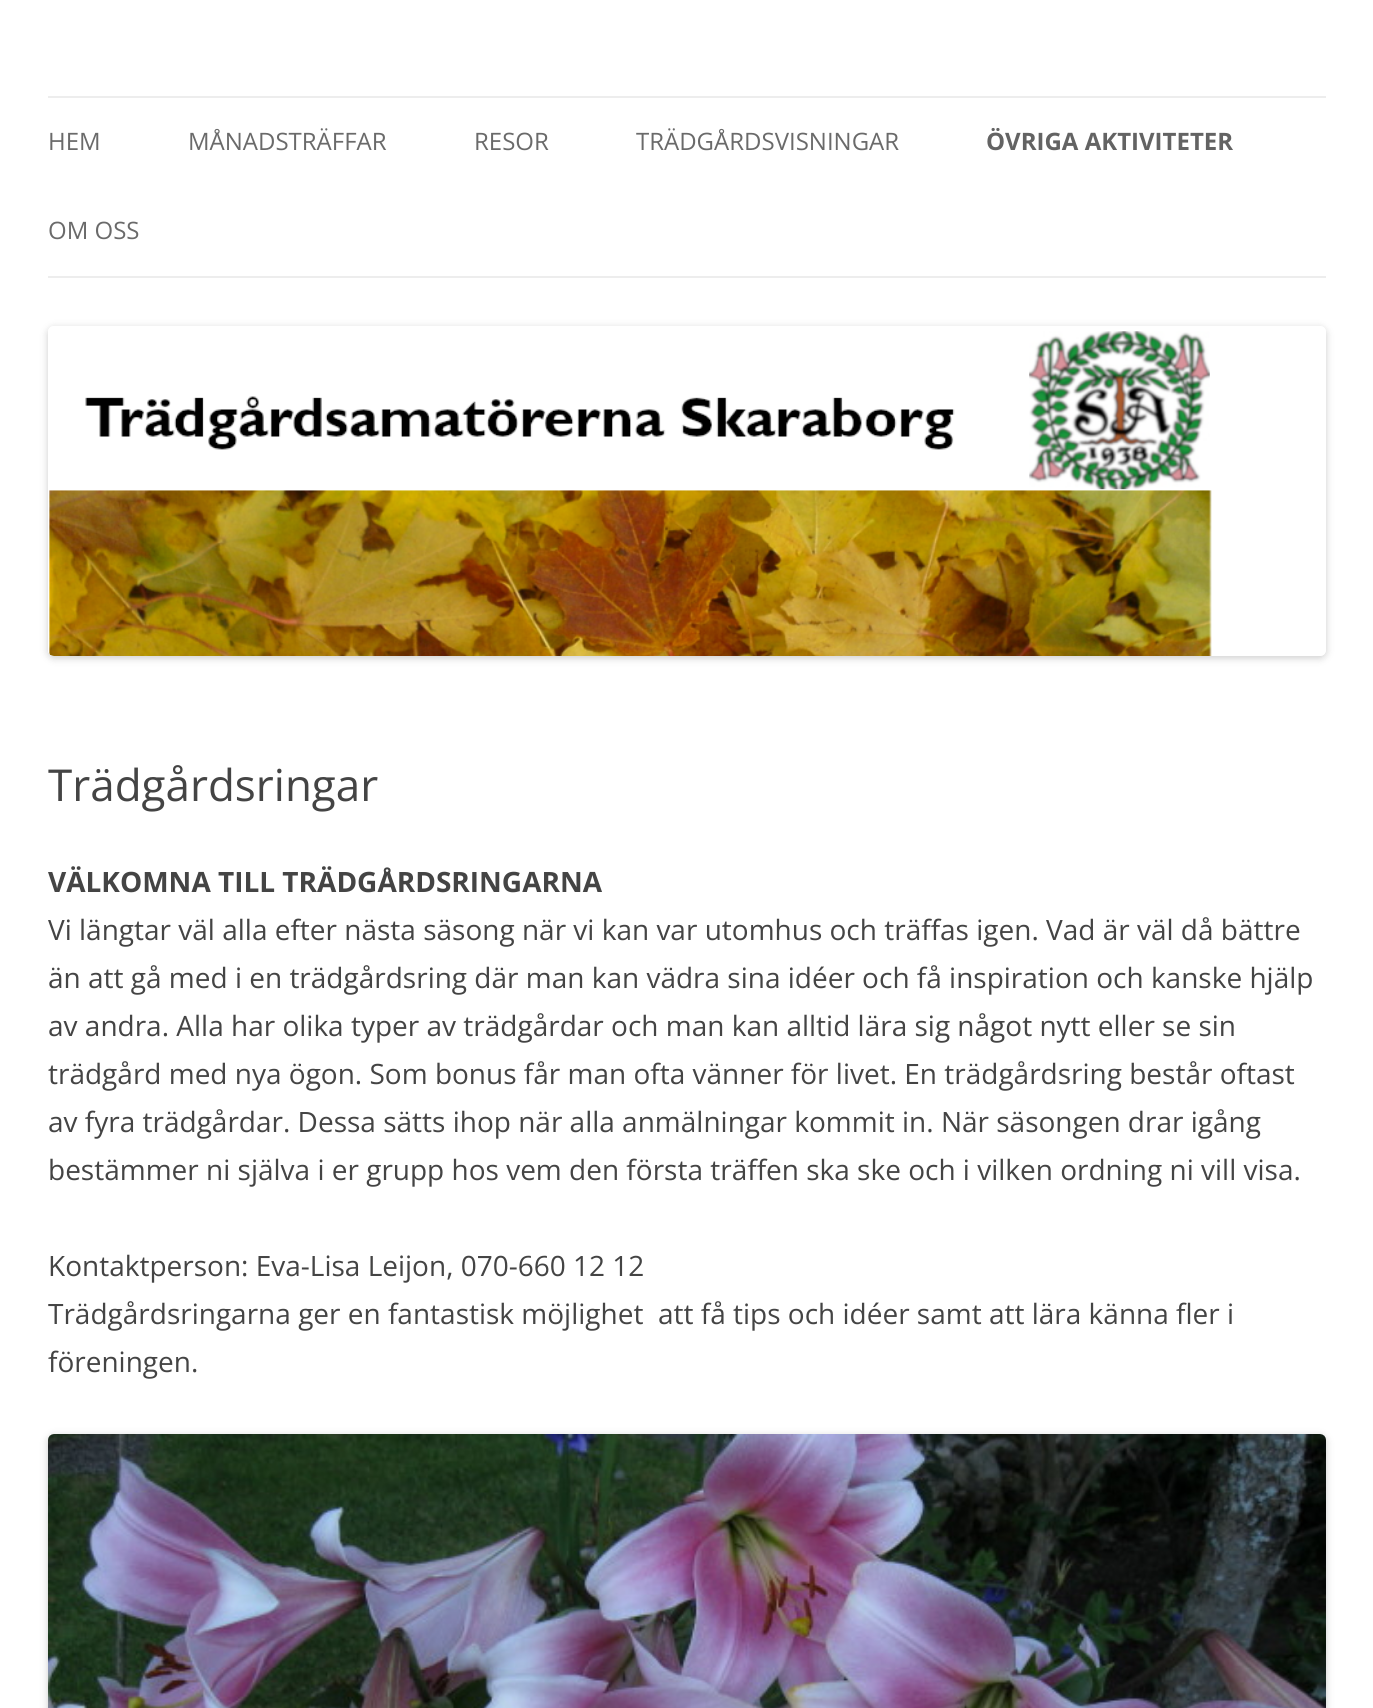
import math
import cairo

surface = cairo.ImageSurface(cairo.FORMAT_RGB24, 1373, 1708)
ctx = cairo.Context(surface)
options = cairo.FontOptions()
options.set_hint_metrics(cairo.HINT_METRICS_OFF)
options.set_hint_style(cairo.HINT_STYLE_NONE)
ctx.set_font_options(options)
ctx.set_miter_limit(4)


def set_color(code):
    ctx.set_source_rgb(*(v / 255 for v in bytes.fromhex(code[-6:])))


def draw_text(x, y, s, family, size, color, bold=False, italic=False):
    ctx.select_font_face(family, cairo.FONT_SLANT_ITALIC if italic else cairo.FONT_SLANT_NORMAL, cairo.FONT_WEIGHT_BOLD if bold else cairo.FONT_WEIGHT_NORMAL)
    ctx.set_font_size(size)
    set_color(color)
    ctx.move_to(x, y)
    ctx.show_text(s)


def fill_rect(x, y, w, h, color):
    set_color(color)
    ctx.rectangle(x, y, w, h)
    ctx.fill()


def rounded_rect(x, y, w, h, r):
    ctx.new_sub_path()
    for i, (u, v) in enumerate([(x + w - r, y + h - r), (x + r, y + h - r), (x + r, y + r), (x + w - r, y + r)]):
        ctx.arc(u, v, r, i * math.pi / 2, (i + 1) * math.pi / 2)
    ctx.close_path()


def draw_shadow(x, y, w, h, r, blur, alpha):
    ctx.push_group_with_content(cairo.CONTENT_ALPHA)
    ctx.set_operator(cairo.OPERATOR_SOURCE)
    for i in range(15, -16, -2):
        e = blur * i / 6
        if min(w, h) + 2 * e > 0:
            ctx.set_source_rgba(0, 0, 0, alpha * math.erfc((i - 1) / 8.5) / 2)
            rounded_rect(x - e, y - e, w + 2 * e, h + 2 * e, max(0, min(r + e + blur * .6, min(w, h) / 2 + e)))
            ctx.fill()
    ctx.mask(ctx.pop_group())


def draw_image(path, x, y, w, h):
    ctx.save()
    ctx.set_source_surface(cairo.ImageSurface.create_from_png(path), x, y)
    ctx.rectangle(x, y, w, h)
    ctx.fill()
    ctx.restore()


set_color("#ffffff")
ctx.paint()
fill_rect(48, 96, 1278, 2, "#ededed")
fill_rect(48, 276, 1278, 2, "#ededed")
draw_text(48, 150, "HEM", "Open Sans", 24, "#6a6a6a")
draw_text(188, 150, "MÅNADSTRÄFFAR", "Open Sans", 24, "#6a6a6a")
draw_text(474, 150, "RESOR", "Open Sans", 24, "#6a6a6a")
draw_text(636, 150, "TRÄDGÅRDSVISNINGAR", "Open Sans", 24, "#6a6a6a")
draw_text(986, 150, "ÖVRIGA AKTIVITETER", "Open Sans", 24, "#636363", bold=True)
draw_text(48, 239, "OM OSS", "Open Sans", 24, "#6a6a6a")
ctx.save()
ctx.set_fill_rule(cairo.FILL_RULE_EVEN_ODD)
ctx.new_path()
ctx.move_to(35, 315)
ctx.line_to(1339, 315)
ctx.line_to(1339, 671)
ctx.line_to(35, 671)
ctx.close_path()
ctx.move_to(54, 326)
ctx.line_to(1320, 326)
ctx.curve_to(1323.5, 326, 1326, 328.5, 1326, 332)
ctx.line_to(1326, 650)
ctx.curve_to(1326, 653.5, 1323.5, 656, 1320, 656)
ctx.line_to(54, 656)
ctx.curve_to(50.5, 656, 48, 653.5, 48, 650)
ctx.line_to(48, 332)
ctx.curve_to(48, 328.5, 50.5, 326, 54, 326)
ctx.close_path()
ctx.clip()
set_color("#000000")
draw_shadow(48, 328, 1278, 330, 6, 4, 0.2)
ctx.restore()
draw_image("assets/img1.png", 48, 331, 1164, 325)
draw_text(48, 801, "Trädgårdsringar", "Open Sans", 44, "#444444")
draw_text(48, 892, "VÄLKOMNA TILL TRÄDGÅRDSRINGARNA", "Open Sans", 28, "#444444", bold=True)
draw_text(48, 940, "Vi längtar väl alla efter nästa säsong när vi kan var utomhus och träffas igen. Vad är väl då bättre", "Open Sans", 28, "#444444")
draw_text(48, 988, "än att gå med i en trädgårdsring där man kan vädra sina idéer och få inspiration och kanske hjälp", "Open Sans", 28, "#444444")
draw_text(48, 1036, "av andra. Alla har olika typer av trädgårdar och man kan alltid lära sig något nytt eller se sin", "Open Sans", 28, "#444444")
draw_text(48, 1084, "trädgård med nya ögon. Som bonus får man ofta vänner för livet. En trädgårdsring består oftast", "Open Sans", 28, "#444444")
draw_text(48, 1132, "av fyra trädgårdar. Dessa sätts ihop när alla anmälningar kommit in. När säsongen drar igång", "Open Sans", 28, "#444444")
draw_text(48, 1180, "bestämmer ni själva i er grupp hos vem den första träffen ska ske och i vilken ordning ni vill visa.", "Open Sans", 28, "#444444")
draw_text(48, 1276, "Kontaktperson: Eva-Lisa Leijon, 070-660 12 12", "Open Sans", 28, "#444444")
draw_text(48, 1324, "Trädgårdsringarna ger en fantastisk möjlighet  att få tips och idéer samt att lära känna fler i", "Open Sans", 28, "#444444")
draw_text(48, 1372, "föreningen.", "Open Sans", 28, "#444444")
set_color("#000000")
draw_shadow(48, 1436, 1278, 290, 6, 4, 0.2)
draw_image("assets/img2.png", 48, 1434, 1278, 274)
surface.write_to_png("output.png")
